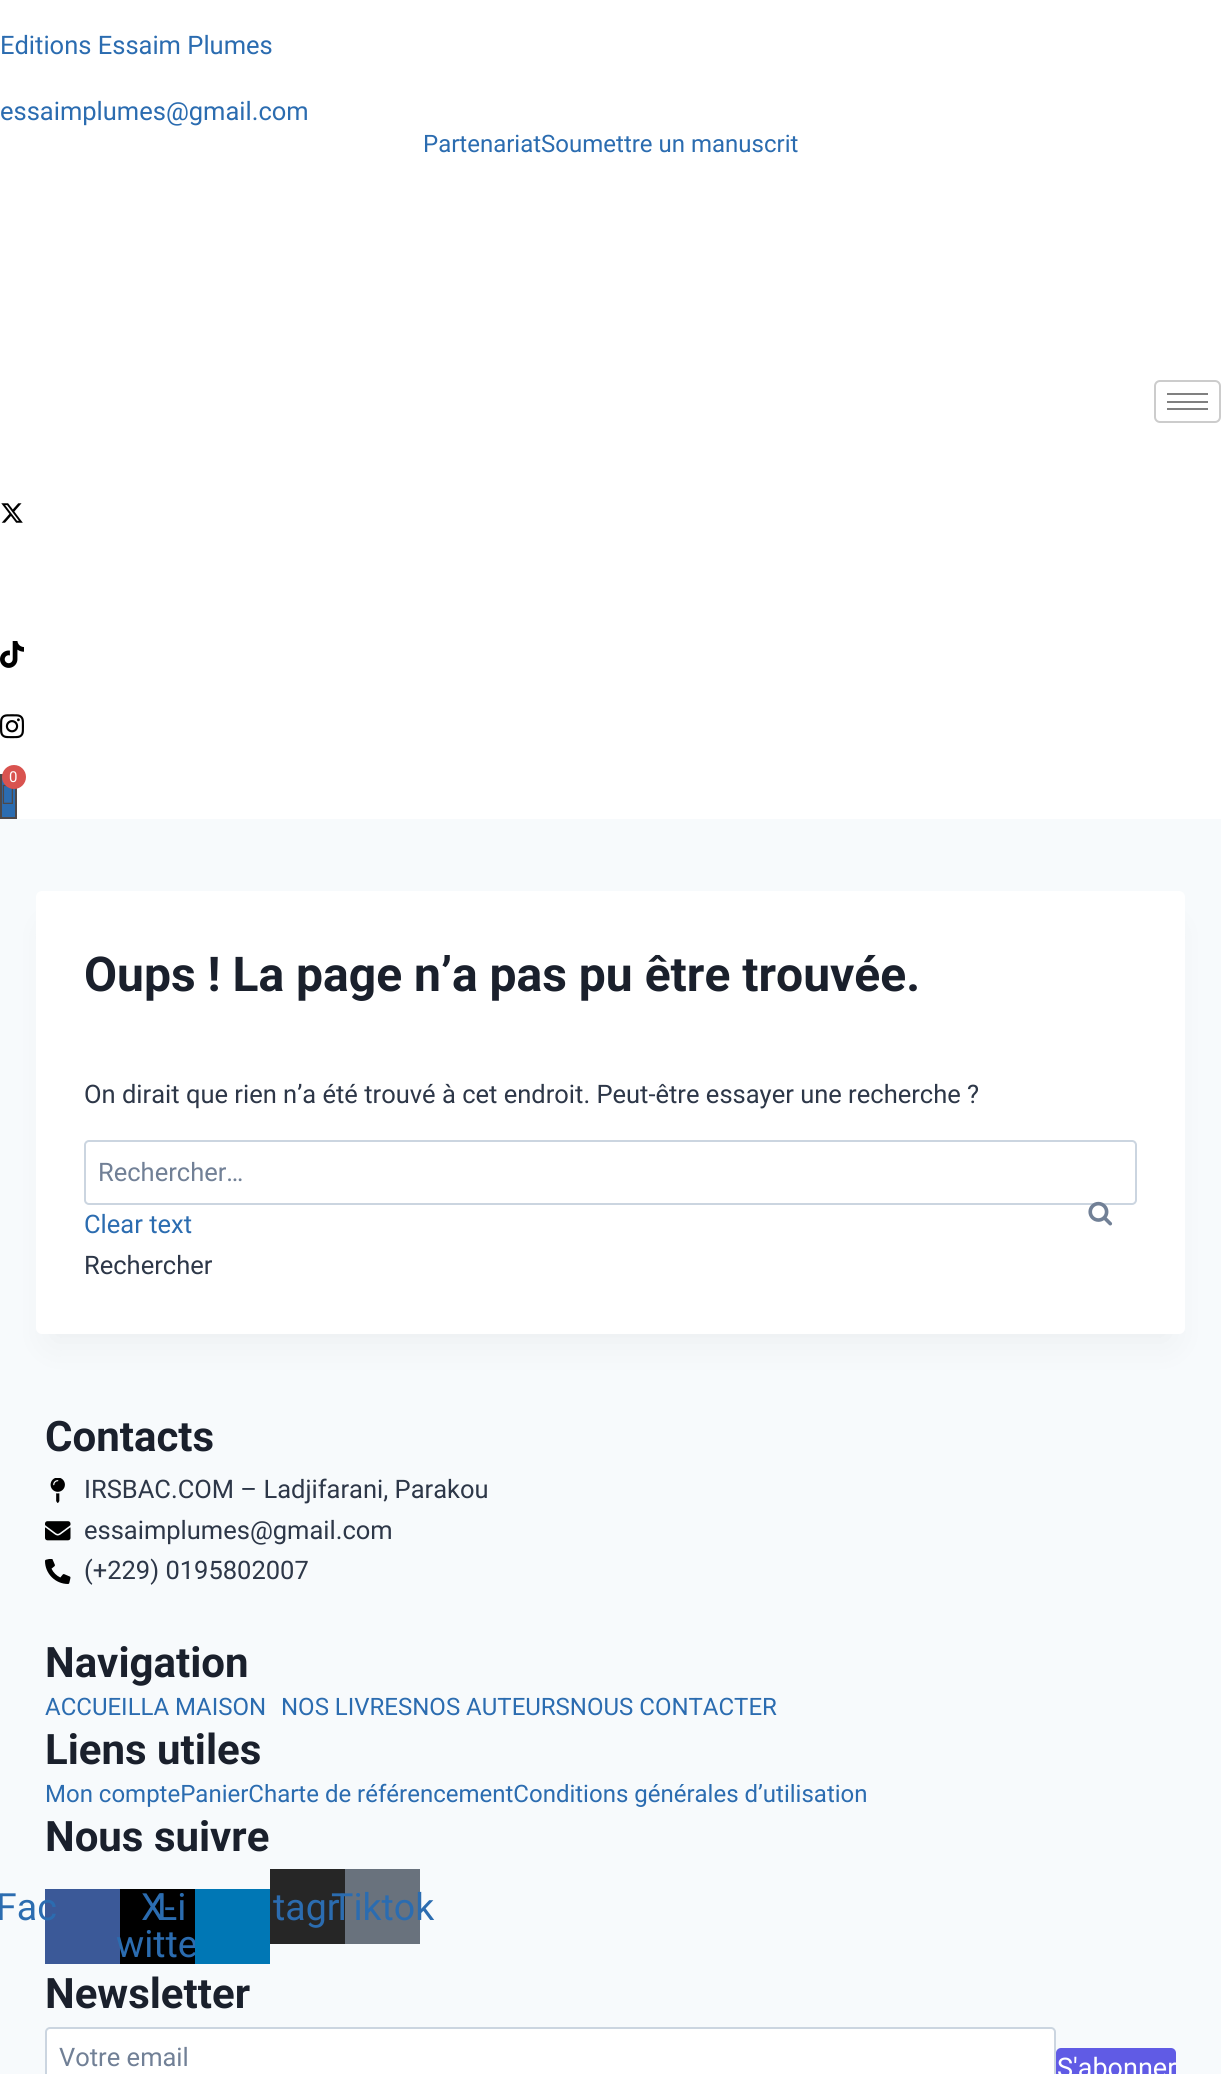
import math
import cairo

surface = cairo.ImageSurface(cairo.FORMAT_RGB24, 1221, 2074)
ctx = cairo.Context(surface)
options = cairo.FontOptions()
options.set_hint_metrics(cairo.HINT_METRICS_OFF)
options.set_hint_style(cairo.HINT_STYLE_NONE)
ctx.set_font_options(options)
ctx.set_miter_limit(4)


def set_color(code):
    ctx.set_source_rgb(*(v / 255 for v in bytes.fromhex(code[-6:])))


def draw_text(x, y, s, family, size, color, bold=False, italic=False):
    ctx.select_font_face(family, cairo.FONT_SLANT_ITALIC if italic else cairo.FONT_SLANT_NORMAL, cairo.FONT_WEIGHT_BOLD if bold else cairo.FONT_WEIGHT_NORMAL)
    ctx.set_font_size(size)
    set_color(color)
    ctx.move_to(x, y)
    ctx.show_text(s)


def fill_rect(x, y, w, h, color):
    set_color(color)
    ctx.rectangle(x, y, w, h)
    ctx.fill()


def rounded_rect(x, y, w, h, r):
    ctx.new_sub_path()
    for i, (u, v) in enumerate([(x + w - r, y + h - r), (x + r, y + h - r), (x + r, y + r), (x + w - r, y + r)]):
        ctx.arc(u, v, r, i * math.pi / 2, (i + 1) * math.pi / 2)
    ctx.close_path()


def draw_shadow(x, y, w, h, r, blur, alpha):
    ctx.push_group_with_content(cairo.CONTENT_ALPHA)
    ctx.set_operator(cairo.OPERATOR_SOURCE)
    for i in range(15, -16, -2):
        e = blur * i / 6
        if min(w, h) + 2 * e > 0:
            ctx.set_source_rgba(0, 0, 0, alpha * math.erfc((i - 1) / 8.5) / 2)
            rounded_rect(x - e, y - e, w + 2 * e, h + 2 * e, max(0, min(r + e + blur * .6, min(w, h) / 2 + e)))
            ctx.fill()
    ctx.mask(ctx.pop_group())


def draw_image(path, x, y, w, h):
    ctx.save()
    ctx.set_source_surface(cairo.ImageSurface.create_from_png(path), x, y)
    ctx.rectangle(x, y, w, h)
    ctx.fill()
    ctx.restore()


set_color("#f7fafc")
ctx.paint()
fill_rect(0, 0, 1221, 819, "#ffffff")
draw_text(0, 54, "Editions Essaim Plumes", "Roboto", 25.5, "#2b6cb0")
draw_text(0, 120, "essaimplumes@gmail.com", "Roboto", 25.5, "#2b6cb0")
draw_text(423, 152, "PartenariatSoumettre un manuscrit", "Roboto", 24, "#2b6cb0")
rounded_rect(1155, 381, 65, 41, 5)
set_color("#cccccc")
ctx.stroke()
fill_rect(1167, 393, 41, 2, "#808080")
fill_rect(1167, 401, 41, 2, "#808080")
fill_rect(1167, 408, 41, 2, "#808080")
draw_image("assets/img1.png", 1, 503, 22, 20)
draw_image("assets/img2.png", 0, 641, 24, 27)
draw_image("assets/img3.png", 0, 714, 24, 25)
set_color("#2b6cb0")
ctx.rectangle(1, 775, 15, 43)
ctx.fill_preserve()
set_color("#4d4848")
ctx.stroke()
draw_image("assets/img4.png", 2, 784, 11, 20)
set_color("#d9534f")
ctx.arc(14, 777, 12, 0, 2 * math.pi)
ctx.fill()
draw_text(9, 782, "0", "Roboto", 15, "#ffffff")
set_color("#000000")
draw_shadow(51, 929, 1119, 412, 0, 19, 0.05)
set_color("#ffffff")
rounded_rect(36, 891, 1149, 443, 6)
ctx.fill()
draw_text(84, 991, "Oups ! La page n’a pas pu être trouvée.", "Roboto", 48, "#1a202c", bold=True)
draw_text(84, 1103, "On dirait que rien n’a été trouvé à cet endroit. Peut-être essayer une recherche ?", "Roboto", 25.5, "#2d3748")
rounded_rect(85, 1141, 1051, 63, 4)
set_color("#cbd5e0")
ctx.stroke()
draw_text(98, 1181, "Rechercher…", "Roboto", 25.5, "#718096")
draw_text(84, 1233, "Clear text", "Roboto", 25.5, "#2b6cb0")
draw_image("assets/img5.png", 1088, 1201, 25, 25)
draw_text(84, 1274, "Rechercher", "Roboto", 25.5, "#2d3748")
draw_text(45, 1451, "Contacts", "Roboto", 42, "#1a202c", bold=True)
draw_image("assets/img6.png", 50, 1478, 15, 25)
draw_text(84, 1498, "IRSBAC.COM – Ladjifarani, Parakou", "Roboto", 25.5, "#2d3748")
draw_image("assets/img7.png", 45, 1521, 26, 20)
draw_text(84, 1539, "essaimplumes@gmail.com", "Roboto", 25.5, "#2d3748")
draw_image("assets/img8.png", 45, 1559, 26, 25)
draw_text(84, 1579, "(+229) 0195802007", "Roboto", 25.5, "#2d3748")
draw_text(45, 1677, "Navigation", "Roboto", 42, "#1a202c", bold=True)
draw_text(45, 1715, "ACCUEILLA MAISON", "Roboto", 24, "#2b6cb0")
draw_text(281, 1715, "NOS LIVRESNOS AUTEURSNOUS CONTACTER", "Roboto", 24, "#2b6cb0")
draw_text(45, 1764, "Liens utiles", "Roboto", 42, "#1a202c", bold=True)
draw_text(45, 1802, "Mon comptePanierCharte de référencementConditions générales d’utilisation", "Roboto", 24, "#2b6cb0")
draw_text(45, 1851, "Nous suivre", "Roboto", 42, "#1a202c", bold=True)
fill_rect(45, 1889, 75, 75, "#3b5998")
draw_text(-4, 1920, "Fac", "Roboto", 37.5, "#2b6cb0")
fill_rect(120, 1889, 75, 75, "#000000")
draw_text(141, 1920, "X-", "Roboto", 37.5, "#2b6cb0")
draw_text(116, 1957, "witte", "Roboto", 37.5, "#2b6cb0")
fill_rect(345, 1869, 75, 75, "#69727d")
fill_rect(270, 1869, 75, 75, "#262626")
draw_text(273, 1920, "tagr", "Roboto", 37.5, "#2b6cb0")
draw_text(331, 1920, "Tiktok", "Roboto", 37.5, "#2b6cb0")
fill_rect(195, 1889, 75, 75, "#0077b5")
draw_text(157, 1920, "Li", "Roboto", 37.5, "#2b6cb0")
draw_text(45, 2008, "Newsletter", "Roboto", 42, "#1a202c", bold=True)
set_color("#ffffff")
rounded_rect(46, 2028, 1009, 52, 4)
ctx.fill_preserve()
set_color("#cbd5e0")
ctx.stroke()
draw_text(59, 2066, "Votre email", "Roboto", 25.5, "#718096")
set_color("#605be5")
rounded_rect(1056, 2048, 120, 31, 5)
ctx.fill()
draw_text(1057, 2077, "S'abonner", "Roboto", 27, "#ffffff")
surface.write_to_png("output.png")
